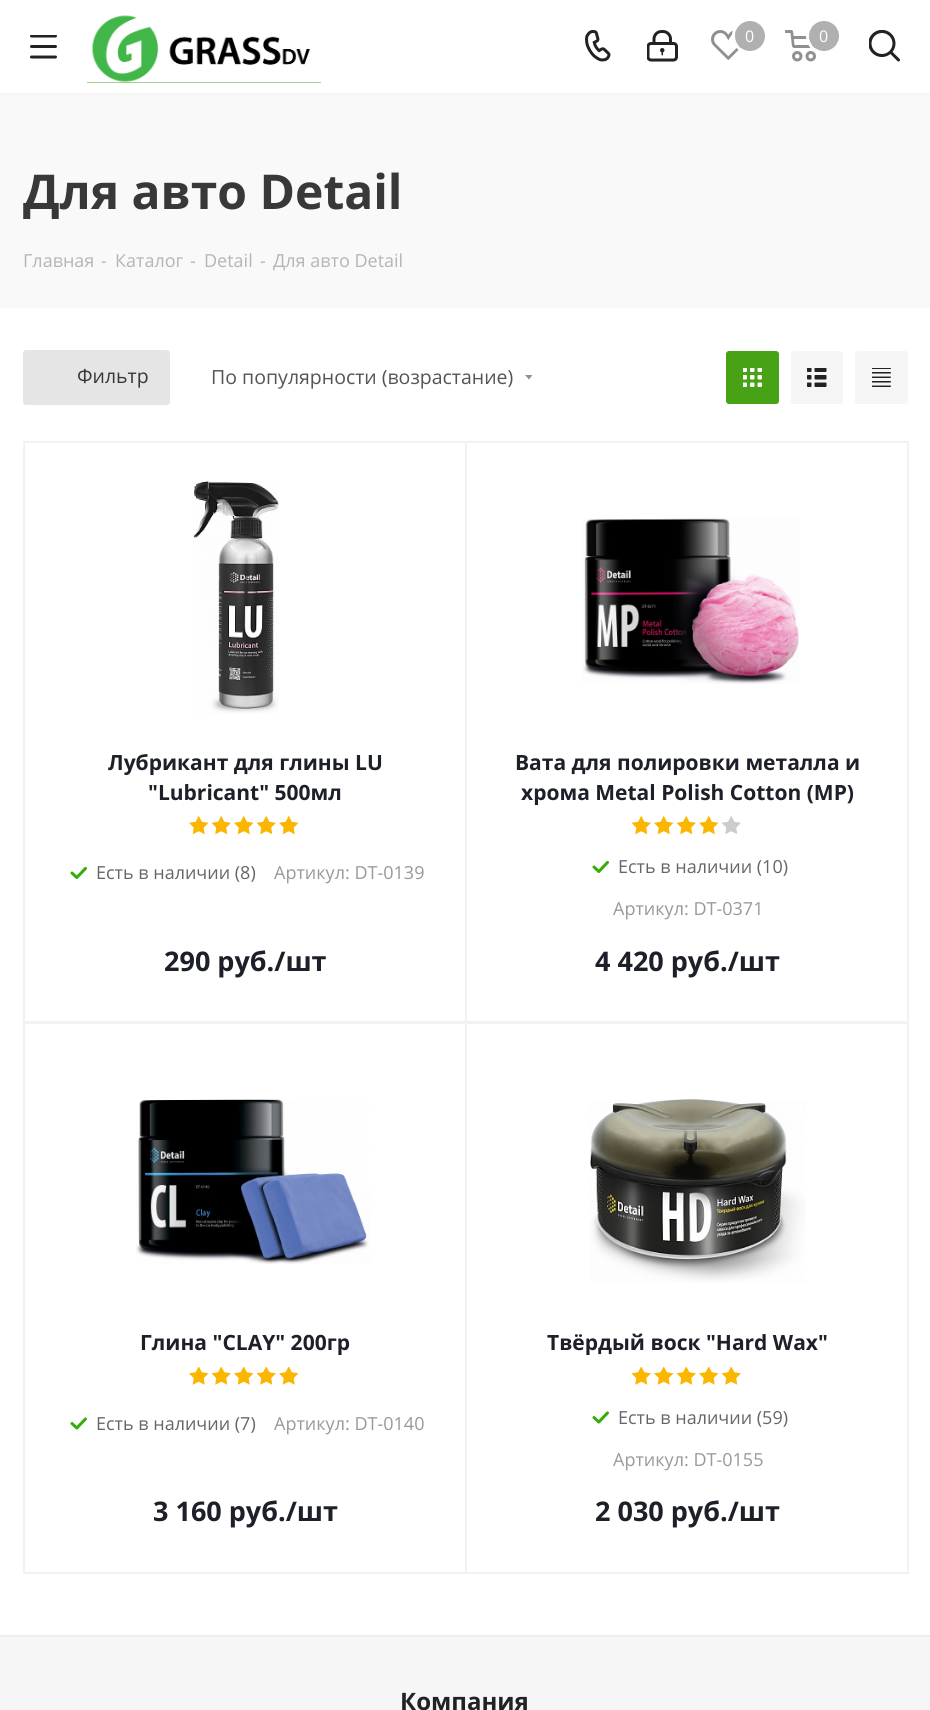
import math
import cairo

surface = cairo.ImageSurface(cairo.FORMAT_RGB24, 930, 1710)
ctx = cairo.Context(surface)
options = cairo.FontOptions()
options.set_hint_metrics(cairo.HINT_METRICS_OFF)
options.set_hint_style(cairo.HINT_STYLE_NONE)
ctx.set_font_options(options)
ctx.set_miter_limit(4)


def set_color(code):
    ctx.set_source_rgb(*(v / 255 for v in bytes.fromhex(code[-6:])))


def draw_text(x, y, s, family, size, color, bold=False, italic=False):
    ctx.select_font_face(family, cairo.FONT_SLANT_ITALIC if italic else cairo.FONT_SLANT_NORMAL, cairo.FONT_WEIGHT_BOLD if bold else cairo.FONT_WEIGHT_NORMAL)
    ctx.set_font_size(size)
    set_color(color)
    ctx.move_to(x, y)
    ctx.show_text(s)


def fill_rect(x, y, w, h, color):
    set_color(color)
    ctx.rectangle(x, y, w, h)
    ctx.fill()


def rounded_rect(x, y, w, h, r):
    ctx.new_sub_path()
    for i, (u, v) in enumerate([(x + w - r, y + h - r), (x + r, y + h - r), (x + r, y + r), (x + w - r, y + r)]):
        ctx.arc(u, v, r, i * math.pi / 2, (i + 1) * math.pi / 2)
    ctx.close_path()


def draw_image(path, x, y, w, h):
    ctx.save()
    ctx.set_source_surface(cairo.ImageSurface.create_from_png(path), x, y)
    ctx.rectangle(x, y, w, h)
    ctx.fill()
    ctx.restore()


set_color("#ffffff")
ctx.paint()
fill_rect(0, 93, 930, 2, "#f5f5f5")
draw_image("assets/img1.png", 30, 35, 27, 24)
fill_rect(87, 82, 234, 1, "#48a216")
draw_image("assets/img2.png", 87, 14, 234, 69)
draw_image("assets/img3.png", 585, 30, 26, 32)
draw_image("assets/img4.png", 647, 30, 31, 32)
draw_image("assets/img5.png", 711, 30, 30, 30)
ctx.arc(750, 36, 16.5, 0, 2 * math.pi)
set_color("#ffffff")
ctx.set_line_width(3)
ctx.stroke()
set_color("#b0b0b0")
ctx.arc(750, 36, 15, 0, 2 * math.pi)
ctx.fill()
draw_text(745, 42, "0", "Open Sans", 16, "#ffffff")
draw_image("assets/img6.png", 785, 30, 31, 32)
ctx.arc(824, 36, 16.5, 0, 2 * math.pi)
ctx.stroke()
set_color("#b0b0b0")
ctx.arc(824, 36, 15, 0, 2 * math.pi)
ctx.fill()
draw_text(819, 42, "0", "Open Sans", 16, "#ffffff")
draw_image("assets/img7.png", 869, 30, 31, 32)
fill_rect(0, 95, 930, 213, "#f9f9f9")
draw_text(23, 209, "Для авто Detail", "Open Sans", 48, "#383838", bold=True)
draw_text(23, 267, "Главная", "Open Sans", 18, "#b6b5b5")
draw_text(101, 267, "-", "Open Sans", 18, "#b6b5b5")
draw_text(115, 267, "Каталог", "Open Sans", 18, "#b6b5b5")
draw_text(190, 267, "-", "Open Sans", 18, "#b6b5b5")
draw_text(204, 267, "Detail", "Open Sans", 18, "#b6b5b5")
draw_text(260, 267, "-", "Open Sans", 18, "#b6b5b5")
draw_text(273, 267, "Для авто Detail", "Open Sans", 18, "#b6b5b5")
set_color("#e5e5e5")
rounded_rect(23, 350, 147, 55, 3)
ctx.fill()
draw_text(77, 383, "Фильтр", "Open Sans", 19.5, "#383838")
draw_text(211, 384, "По популярности (возрастание)", "Open Sans", 19.5, "#555555")
set_color("#909090")
ctx.set_fill_rule(cairo.FILL_RULE_EVEN_ODD)
ctx.new_path()
ctx.move_to(525, 375)
ctx.line_to(532.5, 375)
ctx.line_to(529, 379.5)
ctx.close_path()
ctx.fill()
set_color("#48a216")
rounded_rect(726, 351, 53, 53, 3)
ctx.fill()
draw_image("assets/img8.png", 743, 368, 19, 19)
set_color("#f5f5f5")
rounded_rect(791, 351, 52, 53, 3)
ctx.fill()
draw_image("assets/img9.png", 807, 368, 20, 19)
rounded_rect(855, 351, 53, 53, 3)
ctx.fill()
draw_image("assets/img10.png", 872, 368, 19, 19)
ctx.rectangle(24, 442, 442, 580)
set_color("#f2f2f2")
ctx.set_line_width(2)
ctx.stroke()
draw_image("assets/img11.png", 193, 481, 86, 233)
draw_text(108, 770, "Лубрикант для глины LU", "Open Sans", 21, "#1d2029", bold=True)
draw_text(148, 800, "\"Lubricant\" 500мл", "Open Sans", 21, "#1d2029", bold=True)
draw_image("assets/img12.png", 189, 816, 23, 19)
draw_image("assets/img13.png", 212, 816, 19, 19)
draw_image("assets/img12.png", 234, 816, 23, 19)
draw_image("assets/img13.png", 257, 816, 19, 19)
draw_image("assets/img12.png", 279, 816, 23, 19)
draw_image("assets/img14.png", 70, 866, 17, 13)
draw_text(96, 879, "Есть в наличии (8)", "Open Sans", 18, "#666666")
draw_text(274, 879, "Артикул: DT-0139", "Open Sans", 18, "#999999")
draw_text(164, 971, "290 руб./шт", "Open Sans", 27, "#1d2029", bold=True)
ctx.rectangle(466, 442, 442, 580)
set_color("#f2f2f2")
ctx.stroke()
draw_image("assets/img15.png", 582, 518, 217, 166)
draw_text(515, 770, "Вата для полировки металла и", "Open Sans", 21, "#1d2029", bold=True)
draw_text(521, 800, "хрома Metal Polish Cotton (MP)", "Open Sans", 21, "#1d2029", bold=True)
draw_image("assets/img13.png", 632, 816, 19, 19)
draw_image("assets/img12.png", 654, 816, 23, 19)
draw_image("assets/img13.png", 677, 816, 19, 19)
draw_image("assets/img12.png", 699, 816, 23, 19)
draw_image("assets/img16.png", 722, 816, 19, 18)
draw_image("assets/img14.png", 592, 860, 17, 13)
draw_text(618, 873, "Есть в наличии (10)", "Open Sans", 18, "#666666")
draw_text(613, 915, "Артикул: DT-0371", "Open Sans", 18, "#999999")
draw_text(595, 971, "4 420 руб./шт", "Open Sans", 27, "#1d2029", bold=True)
ctx.rectangle(24, 1023, 442, 550)
set_color("#f2f2f2")
ctx.stroke()
draw_image("assets/img17.png", 136, 1099, 234, 165)
draw_text(140, 1350, "Глина \"CLAY\" 200гр", "Open Sans", 21, "#1d2029", bold=True)
draw_image("assets/img18.png", 189, 1367, 23, 18)
draw_image("assets/img19.png", 212, 1367, 19, 18)
draw_image("assets/img18.png", 234, 1367, 23, 18)
draw_image("assets/img19.png", 257, 1367, 19, 18)
draw_image("assets/img18.png", 279, 1367, 23, 18)
draw_image("assets/img20.png", 70, 1417, 17, 13)
draw_text(96, 1430, "Есть в наличии (7)", "Open Sans", 18, "#666666")
draw_text(274, 1430, "Артикул: DT-0140", "Open Sans", 18, "#999999")
draw_text(153, 1521, "3 160 руб./шт", "Open Sans", 27, "#1d2029", bold=True)
ctx.rectangle(466, 1023, 442, 550)
set_color("#f2f2f2")
ctx.stroke()
draw_image("assets/img21.png", 590, 1099, 216, 184)
draw_text(547, 1350, "Твёрдый воск \"Hard Wax\"", "Open Sans", 21, "#1d2029", bold=True)
draw_image("assets/img19.png", 632, 1367, 19, 18)
draw_image("assets/img18.png", 654, 1367, 23, 18)
draw_image("assets/img19.png", 677, 1367, 19, 18)
draw_image("assets/img18.png", 699, 1367, 23, 18)
draw_image("assets/img19.png", 722, 1367, 19, 18)
draw_image("assets/img20.png", 592, 1411, 17, 13)
draw_text(618, 1424, "Есть в наличии (59)", "Open Sans", 18, "#666666")
draw_text(613, 1466, "Артикул: DT-0155", "Open Sans", 18, "#999999")
draw_text(595, 1521, "2 030 руб./шт", "Open Sans", 27, "#1d2029", bold=True)
fill_rect(0, 1635, 930, 2, "#eeeeee")
fill_rect(0, 1637, 930, 73, "#f6f6f7")
draw_text(400, 1710, "Компания", "Open Sans", 24, "#222222", bold=True)
surface.write_to_png("output.png")
